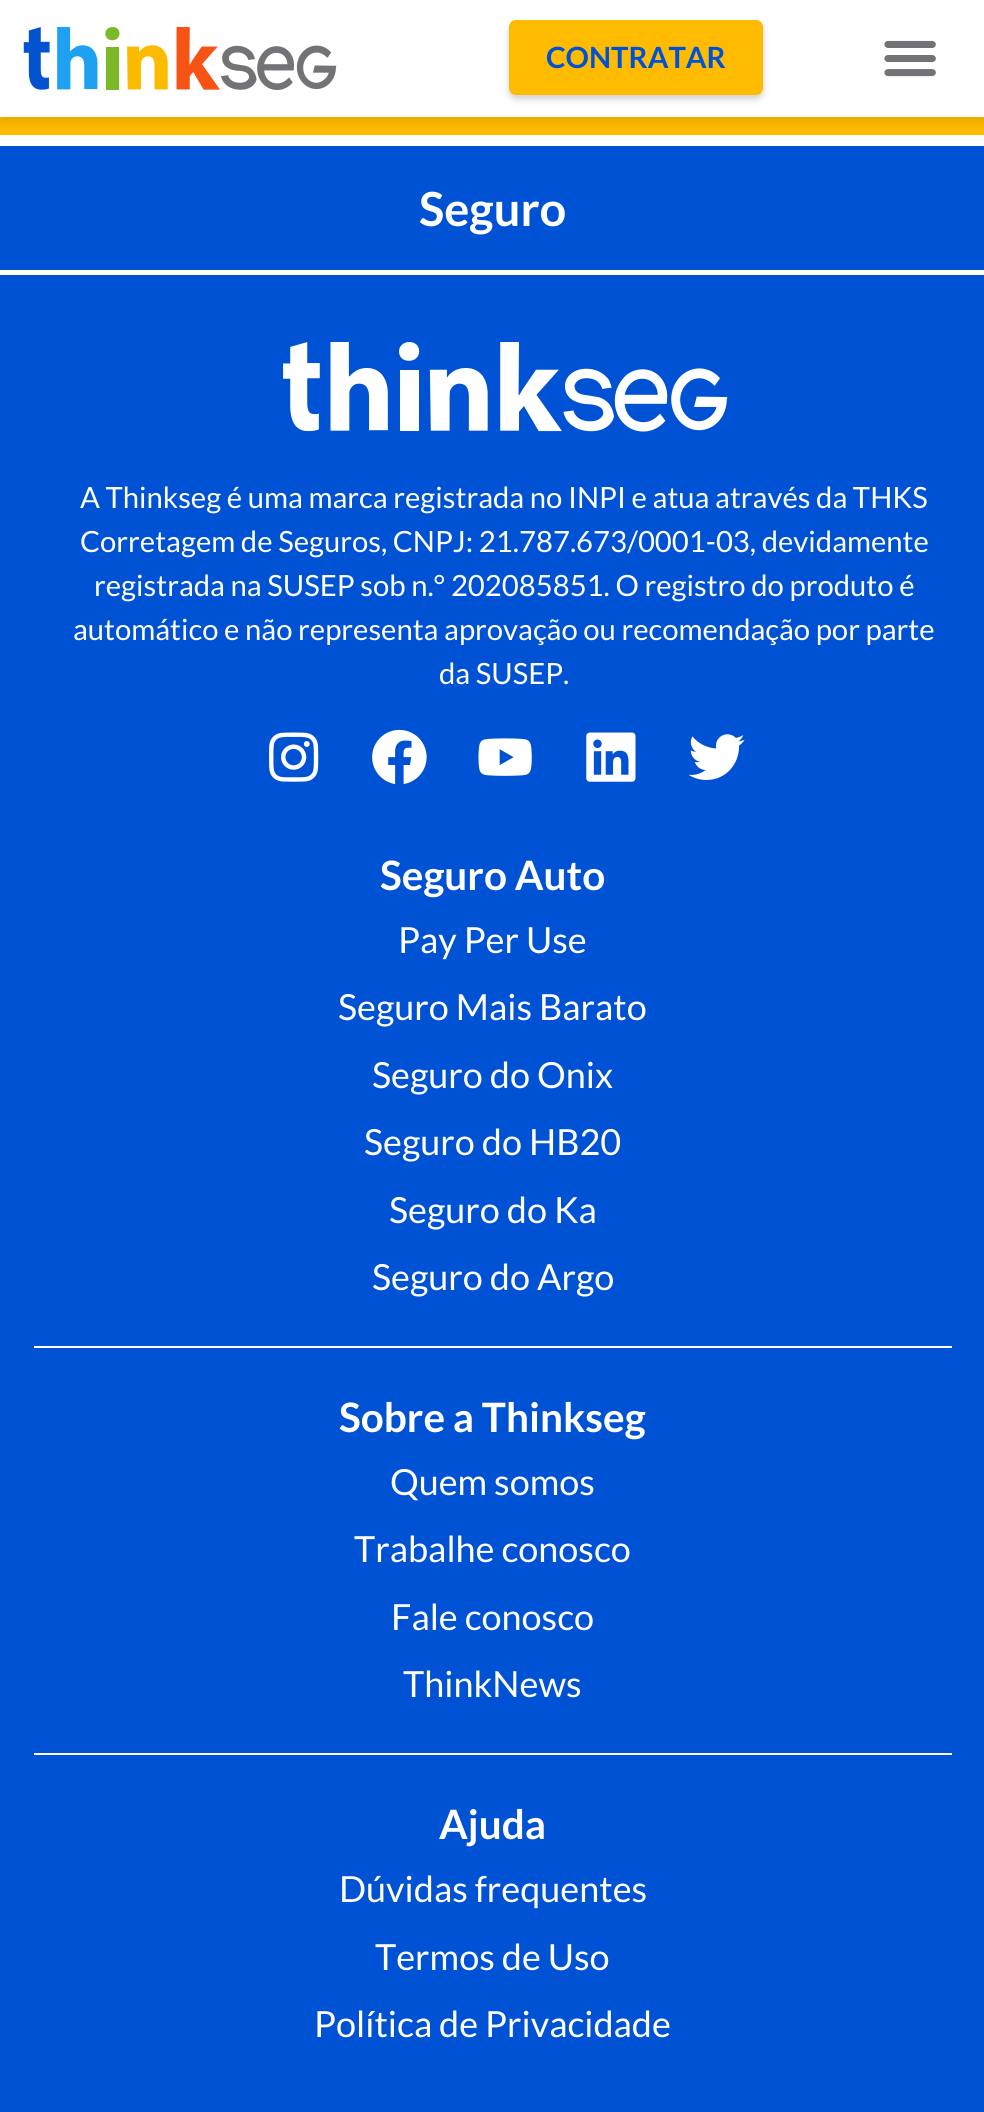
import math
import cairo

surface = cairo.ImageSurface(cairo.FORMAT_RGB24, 984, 2112)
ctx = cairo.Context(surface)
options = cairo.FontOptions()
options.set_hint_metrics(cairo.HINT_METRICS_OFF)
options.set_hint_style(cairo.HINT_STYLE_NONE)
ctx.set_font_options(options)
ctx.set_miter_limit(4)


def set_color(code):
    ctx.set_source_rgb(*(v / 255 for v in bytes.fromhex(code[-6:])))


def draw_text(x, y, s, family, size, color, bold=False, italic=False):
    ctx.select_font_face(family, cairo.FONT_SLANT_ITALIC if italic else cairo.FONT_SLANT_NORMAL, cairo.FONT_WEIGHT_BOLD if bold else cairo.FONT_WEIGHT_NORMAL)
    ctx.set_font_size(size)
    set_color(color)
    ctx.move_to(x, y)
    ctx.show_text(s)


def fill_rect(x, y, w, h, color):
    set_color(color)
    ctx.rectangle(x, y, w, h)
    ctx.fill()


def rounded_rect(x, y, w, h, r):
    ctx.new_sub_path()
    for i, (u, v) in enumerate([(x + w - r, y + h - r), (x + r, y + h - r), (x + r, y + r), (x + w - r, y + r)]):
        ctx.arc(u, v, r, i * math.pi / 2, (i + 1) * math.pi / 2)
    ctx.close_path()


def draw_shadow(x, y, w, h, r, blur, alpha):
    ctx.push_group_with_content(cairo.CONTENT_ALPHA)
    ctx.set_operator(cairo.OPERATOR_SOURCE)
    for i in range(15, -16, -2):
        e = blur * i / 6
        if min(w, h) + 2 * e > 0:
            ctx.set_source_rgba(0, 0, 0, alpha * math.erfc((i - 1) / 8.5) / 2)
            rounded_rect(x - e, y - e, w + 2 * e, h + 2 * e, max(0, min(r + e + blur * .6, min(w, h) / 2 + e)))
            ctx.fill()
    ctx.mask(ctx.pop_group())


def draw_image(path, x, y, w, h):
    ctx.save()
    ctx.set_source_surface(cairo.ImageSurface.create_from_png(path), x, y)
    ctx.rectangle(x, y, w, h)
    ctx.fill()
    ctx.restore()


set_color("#ffffff")
ctx.paint()
fill_rect(0, 117, 984, 18, "#ffbb00")
set_color("#000000")
draw_shadow(0, 5, 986, 117, 0, 5.5, 0.11)
fill_rect(0, 0, 984, 117, "#ffffff")
draw_image("assets/img1.png", 23, 27, 314, 63)
set_color("#000000")
draw_shadow(509, 25, 254, 74, 7, 3.5, 0.18)
set_color("#ffbb00")
rounded_rect(509, 20, 254, 75, 7)
ctx.fill()
draw_text(546, 68, "CONTRATAR", "Lato", 29.25, "#0052d5", bold=True)
draw_image("assets/img2.png", 884, 40, 52, 37)
fill_rect(0, 146, 984, 124, "#0052d5")
draw_text(419, 226, "Seguro", "Lato", 47, "#ffffff", bold=True)
fill_rect(0, 275, 984, 1837, "#0052d5")
draw_image("assets/img3.png", 283, 342, 445, 90)
draw_text(80, 508, "A Thinkseg é uma marca registrada no INPI e atua através da THKS", "Lato", 29.25, "#ffffff")
draw_text(80, 552, "Corretagem de Seguros, CNPJ: 21.787.673/0001-03, devidamente", "Lato", 29.25, "#ffffff")
draw_text(94, 596, "registrada na SUSEP sob n.° 202085851. O registro do produto é", "Lato", 29.25, "#ffffff")
draw_text(73, 640, "automático e não representa aprovação ou recomendação por parte", "Lato", 29.25, "#ffffff")
draw_text(439, 684, "da SUSEP.", "Lato", 29.25, "#ffffff")
draw_image("assets/img4.png", 269, 732, 50, 50)
draw_image("assets/img5.png", 372, 729, 55, 55)
draw_image("assets/img6.png", 478, 738, 54, 38)
draw_image("assets/img7.png", 586, 732, 50, 50)
draw_image("assets/img8.png", 689, 734, 56, 46)
draw_text(380, 890, "Seguro Auto", "Lato", 40.5, "#ffffff", bold=True)
draw_text(398, 953, "Pay Per Use", "Lato", 36, "#ffffff")
draw_text(338, 1020, "Seguro Mais Barato", "Lato", 36, "#ffffff")
draw_text(372, 1088, "Seguro do Onix", "Lato", 36, "#ffffff")
draw_text(364, 1155, "Seguro do HB20", "Lato", 36, "#ffffff")
draw_text(389, 1223, "Seguro do Ka", "Lato", 36, "#ffffff")
draw_text(372, 1290, "Seguro do Argo", "Lato", 36, "#ffffff")
fill_rect(34, 1346, 918, 2, "#ffffff")
draw_text(339, 1432, "Sobre a Thinkseg", "Lato", 40.5, "#ffffff", bold=True)
draw_text(390, 1495, "Quem somos", "Lato", 36, "#ffffff")
draw_text(354, 1562, "Trabalhe conosco", "Lato", 36, "#ffffff")
draw_text(391, 1630, "Fale conosco", "Lato", 36, "#ffffff")
draw_text(403, 1697, "ThinkNews", "Lato", 36, "#ffffff")
fill_rect(34, 1753, 918, 2, "#ffffff")
draw_text(439, 1839, "Ajuda", "Lato", 40.5, "#ffffff", bold=True)
draw_text(339, 1902, "Dúvidas frequentes", "Lato", 36, "#ffffff")
draw_text(375, 1970, "Termos de Uso", "Lato", 36, "#ffffff")
draw_text(314, 2037, "Política de Privacidade", "Lato", 36, "#ffffff")
surface.write_to_png("output.png")
